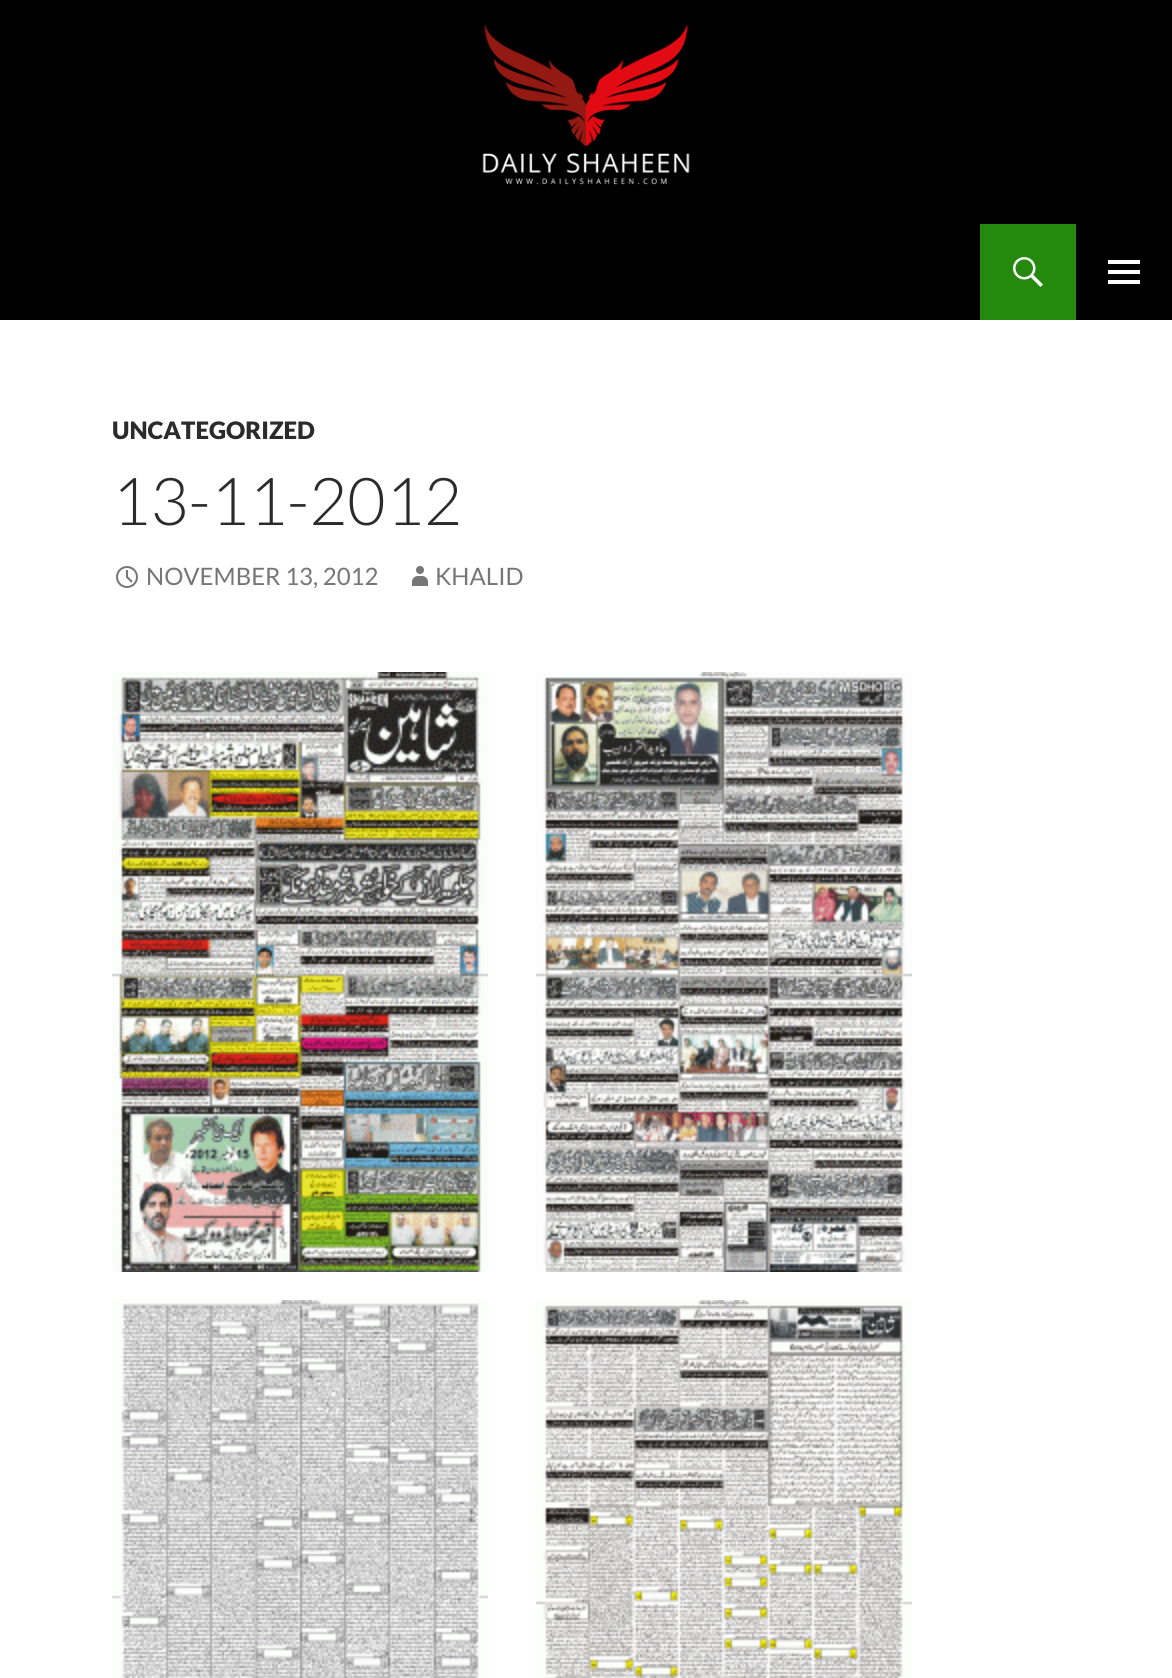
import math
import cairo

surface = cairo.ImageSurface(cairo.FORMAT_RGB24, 1172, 1678)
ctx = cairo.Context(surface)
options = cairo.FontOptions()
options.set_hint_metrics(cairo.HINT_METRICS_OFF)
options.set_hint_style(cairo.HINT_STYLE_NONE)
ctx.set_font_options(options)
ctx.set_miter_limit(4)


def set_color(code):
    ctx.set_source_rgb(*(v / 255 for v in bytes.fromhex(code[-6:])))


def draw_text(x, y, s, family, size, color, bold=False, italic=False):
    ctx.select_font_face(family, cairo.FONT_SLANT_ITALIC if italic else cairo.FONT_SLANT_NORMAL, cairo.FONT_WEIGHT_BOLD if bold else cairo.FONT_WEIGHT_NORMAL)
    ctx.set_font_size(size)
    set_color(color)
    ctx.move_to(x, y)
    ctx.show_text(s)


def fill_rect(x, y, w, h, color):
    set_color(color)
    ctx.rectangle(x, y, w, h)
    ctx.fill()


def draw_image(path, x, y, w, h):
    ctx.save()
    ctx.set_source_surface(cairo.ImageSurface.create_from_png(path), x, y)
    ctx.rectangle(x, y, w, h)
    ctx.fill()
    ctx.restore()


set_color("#ffffff")
ctx.paint()
draw_image("assets/img1.png", 0, 0, 1172, 224)
fill_rect(0, 224, 1172, 96, "#000000")
fill_rect(980, 224, 96, 96, "#24890d")
draw_image("assets/img2.png", 1013, 257, 30, 30)
draw_image("assets/img3.png", 1108, 260, 32, 24)
draw_text(112, 439, "UNCATEGORIZED", "Lato Black", 24, "#2b2b2b")
draw_text(112, 525, "13-11-2012", "Lato Light", 66, "#2b2b2b")
draw_image("assets/img4.png", 116, 566, 22, 22)
draw_text(146, 585, "NOVEMBER 13, 2012", "Lato", 24, "#767676")
draw_image("assets/img5.png", 412, 566, 16, 20)
draw_text(435, 585, "KHALID", "Lato", 24, "#767676")
draw_image("assets/img6.png", 112, 672, 376, 600)
draw_image("assets/img7.png", 536, 672, 376, 600)
draw_image("assets/img8.png", 112, 1300, 376, 378)
draw_image("assets/img9.png", 536, 1300, 376, 378)
surface.write_to_png("output.png")
